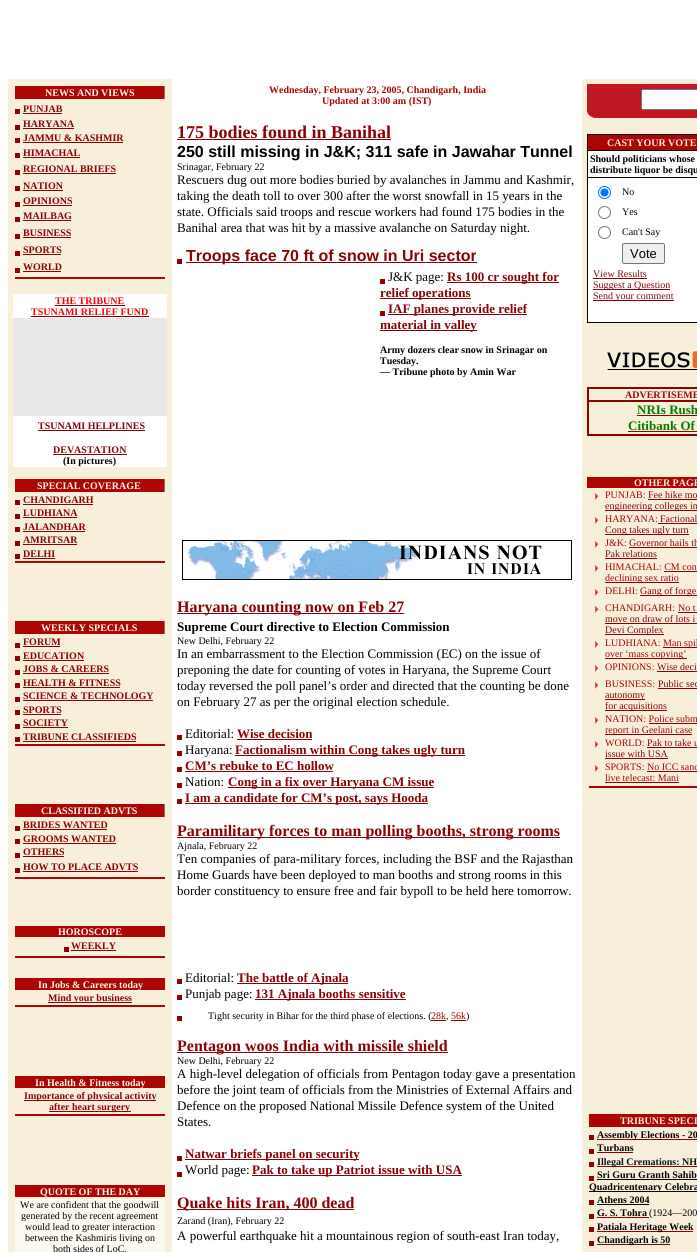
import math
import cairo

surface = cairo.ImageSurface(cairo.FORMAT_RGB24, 697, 1252)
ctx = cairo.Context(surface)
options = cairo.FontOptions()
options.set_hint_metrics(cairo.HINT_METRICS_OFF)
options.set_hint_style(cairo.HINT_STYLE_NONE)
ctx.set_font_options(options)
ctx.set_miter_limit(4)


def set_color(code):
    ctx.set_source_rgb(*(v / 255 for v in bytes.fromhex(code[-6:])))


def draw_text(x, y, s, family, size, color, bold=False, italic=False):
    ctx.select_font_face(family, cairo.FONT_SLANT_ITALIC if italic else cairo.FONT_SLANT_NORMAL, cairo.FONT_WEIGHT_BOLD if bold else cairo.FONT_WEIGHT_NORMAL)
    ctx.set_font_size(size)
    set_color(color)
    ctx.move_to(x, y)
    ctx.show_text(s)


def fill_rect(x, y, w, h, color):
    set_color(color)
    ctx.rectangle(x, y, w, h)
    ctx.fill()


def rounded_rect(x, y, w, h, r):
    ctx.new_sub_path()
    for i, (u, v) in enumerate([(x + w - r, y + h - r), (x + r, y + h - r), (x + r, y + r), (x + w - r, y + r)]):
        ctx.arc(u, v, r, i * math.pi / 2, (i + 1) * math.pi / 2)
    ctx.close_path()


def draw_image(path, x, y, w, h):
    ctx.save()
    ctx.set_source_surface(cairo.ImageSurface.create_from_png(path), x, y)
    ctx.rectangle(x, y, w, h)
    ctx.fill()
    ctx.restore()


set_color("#ffffff")
ctx.paint()
fill_rect(8, 79, 164, 1173, "#f8efdb")
fill_rect(164, 86, 1, 13, "#8d7069")
fill_rect(15, 86, 149, 13, "#ad0404")
draw_text(45, 96, "NEWS AND VIEWS", "Liberation Serif", 10, "#fff9ea", bold=True)
draw_text(23, 112, "PUNJAB", "Liberation Serif", 10, "#8d0303", bold=True)
fill_rect(15, 109, 5, 5, "#8d0303")
fill_rect(23, 113, 39, 1, "#8d0303")
draw_text(23, 127, "HARYANA", "Liberation Serif", 10, "#8d0303", bold=True)
fill_rect(15, 125, 5, 5, "#8d0303")
fill_rect(23, 128, 51, 1, "#8d0303")
draw_text(23, 141, "JAMMU & KASHMIR", "Liberation Serif", 10, "#8d0303", bold=True)
fill_rect(15, 138, 5, 5, "#8d0303")
fill_rect(23, 142, 100, 1, "#8d0303")
draw_text(23, 156, "HIMACHAL", "Liberation Serif", 10, "#8d0303", bold=True)
fill_rect(15, 153, 5, 5, "#8d0303")
fill_rect(23, 157, 57, 1, "#8d0303")
fill_rect(15, 170, 5, 5, "#8d0303")
draw_text(23, 172, "REGIONAL BRIEFS", "Liberation Serif", 10, "#8d0303", bold=True)
fill_rect(23, 173, 93, 1, "#8d0303")
draw_text(23, 189, "NATION", "Liberation Serif", 10, "#8d0303", bold=True)
fill_rect(15, 186, 5, 5, "#8d0303")
fill_rect(23, 190, 40, 1, "#8d0303")
draw_text(23, 204, "OPINIONS", "Liberation Serif", 10, "#8d0303", bold=True)
fill_rect(15, 202, 5, 5, "#8d0303")
fill_rect(23, 205, 49, 1, "#8d0303")
fill_rect(15, 217, 5, 5, "#8d0303")
draw_text(23, 219, "MAILBAG", "Liberation Serif", 10, "#8d0303", bold=True)
fill_rect(23, 220, 48, 1, "#8d0303")
draw_text(23, 236, "BUSINESS", "Liberation Serif", 10, "#8d0303", bold=True)
fill_rect(15, 234, 5, 5, "#8d0303")
fill_rect(23, 237, 48, 1, "#8d0303")
draw_text(23, 253, "SPORTS", "Liberation Serif", 10, "#8d0303", bold=True)
fill_rect(15, 251, 5, 5, "#8d0303")
fill_rect(23, 254, 38, 1, "#8d0303")
draw_text(23, 270, "WORLD", "Liberation Serif", 10, "#8d0303", bold=True)
fill_rect(15, 268, 5, 5, "#8d0303")
fill_rect(23, 271, 38, 1, "#8d0303")
fill_rect(15, 277, 150, 2, "#ad0404")
fill_rect(13, 294, 154, 24, "#ffffff")
draw_text(55, 304, "THE TRIBUNE", "Liberation Serif", 10, "#ff0000", bold=True)
fill_rect(55, 305, 70, 1, "#8d0303")
draw_text(31, 315, "TSUNAMI RELIEF FUND", "Liberation Serif", 10, "#ff0000", bold=True)
fill_rect(31, 316, 118, 1, "#8d0303")
fill_rect(13, 318, 154, 98, "#e8e8e8")
fill_rect(13, 416, 154, 51, "#ffffff")
draw_text(38, 429, "TSUNAMI HELPLINES", "Liberation Serif", 10, "#8d0303", bold=True)
fill_rect(38, 430, 107, 1, "#8d0303")
draw_text(53, 453, "DEVASTATION", "Liberation Serif", 10, "#8d0303", bold=True)
fill_rect(53, 454, 74, 1, "#8d0303")
draw_text(63, 464, "(In pictures)", "Liberation Serif", 10, "#000000", bold=True)
draw_text(269, 93, "Wednesday, February 23, 2005, Chandigarh, India", "Liberation Serif", 10, "#ad0404", bold=True)
draw_text(322, 104, "Updated at 3:00 am (IST)", "Liberation Serif", 10, "#ad0404", bold=True)
draw_text(177, 138, "175 bodies found in Banihal", "Liberation Serif", 18, "#8d0303", bold=True)
fill_rect(177, 139, 214, 1, "#8d0303")
draw_text(177, 157, "250 still missing in J&K; 311 safe in Jawahar Tunnel", "Liberation Sans", 16, "#000000", bold=True)
draw_text(177, 170, "Srinagar, February 22", "Liberation Serif", 10, "#000000")
draw_text(177, 184, "Rescuers dug out more bodies buried by avalanches in Jammu and Kashmir,", "Liberation Serif", 13, "#000000")
draw_text(177, 200, "taking the death toll to over 300 after the worst snowfall in 15 years in the", "Liberation Serif", 13, "#000000")
draw_text(177, 216, "state. Officials said troops and rescue workers had found 175 bodies in the", "Liberation Serif", 13, "#000000")
draw_text(177, 232, "Banihal area that was hit by a massive avalanche on Saturday night.", "Liberation Serif", 13, "#000000")
fill_rect(186, 262, 291, 1, "#8d0303")
draw_text(186, 261, "Troops face 70 ft of snow in Uri sector", "Liberation Sans", 16, "#8d0303", bold=True)
fill_rect(177, 259, 5, 5, "#8d0303")
fill_rect(380, 279, 5, 5, "#8d0303")
draw_text(388, 281, "J&K page:", "Liberation Serif", 13, "#000000")
fill_rect(447, 282, 112, 1, "#8d0303")
draw_text(447, 281, "Rs 100 cr sought for", "Liberation Serif", 13, "#8d0303", bold=True)
fill_rect(380, 298, 91, 1, "#8d0303")
draw_text(380, 297, "relief operations", "Liberation Serif", 13, "#8d0303", bold=True)
fill_rect(380, 311, 5, 5, "#8d0303")
fill_rect(388, 314, 139, 1, "#8d0303")
draw_text(388, 313, "IAF planes provide relief", "Liberation Serif", 13, "#8d0303", bold=True)
fill_rect(380, 330, 97, 1, "#8d0303")
draw_text(380, 329, "material in valley", "Liberation Serif", 13, "#8d0303", bold=True)
draw_text(380, 353, "Army dozers clear snow in Srinagar on", "Liberation Serif", 10, "#000000", bold=True)
draw_text(380, 364, "Tuesday.", "Liberation Serif", 10, "#000000", bold=True)
draw_text(380, 375, "— Tribune photo by Amin War", "Liberation Serif", 10, "#000000", bold=True)
fill_rect(582, 79, 115, 1173, "#f8efdb")
fill_rect(587, 84, 110, 5, "#c41624")
fill_rect(587, 89, 56, 21, "#bf1624")
set_color("#ffffff")
rounded_rect(641.5, 89.5, 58, 20, 1.5)
ctx.fill_preserve()
set_color("#767676")
ctx.set_line_width(1)
ctx.stroke()
draw_image("assets/img1.png", 587, 110, 110, 8)
fill_rect(587, 134, 110, 189, "#000000")
fill_rect(588, 135, 109, 15, "#ad0404")
draw_text(607, 146, "CAST YOUR VOTE", "Liberation Serif", 10, "#f8efdb", bold=True)
fill_rect(588, 151, 109, 26, "#ffffff")
draw_text(590, 162, "Should politicians whose", "Liberation Serif", 10, "#000000", bold=True)
draw_text(590, 173, "distribute liquor be disqu", "Liberation Serif", 10, "#000000", bold=True)
fill_rect(588, 178, 109, 144, "#ffffff")
ctx.new_path()
ctx.arc(604.5, 192.5, 6, 0, 2 * math.pi)
set_color("#0075ff")
ctx.stroke()
ctx.arc(604.5, 192.5, 4, 0, 2 * math.pi)
ctx.fill()
draw_text(622, 195, "No", "Liberation Serif", 10, "#000000")
ctx.new_path()
ctx.arc(604.5, 212.5, 6, 0, 2 * math.pi)
set_color("#767676")
ctx.stroke()
draw_text(622, 215, "Yes", "Liberation Serif", 10, "#000000")
ctx.new_path()
ctx.arc(604.5, 232.5, 6, 0, 2 * math.pi)
set_color("#767676")
ctx.stroke()
draw_text(622, 235, "Can't Say", "Liberation Serif", 10, "#000000")
set_color("#efefef")
rounded_rect(622.5, 243.5, 42, 20, 1.5)
ctx.fill_preserve()
set_color("#767676")
ctx.stroke()
draw_text(630, 258, "Vote", "Liberation Sans", 13, "#000000")
draw_text(593, 277, "View Results", "Liberation Serif", 10, "#8d0303")
fill_rect(593, 278, 54, 1, "#8d0303")
fill_rect(593, 289, 77, 1, "#8d0303")
draw_text(593, 288, "Suggest a Question", "Liberation Serif", 10, "#8d0303")
fill_rect(593, 300, 81, 1, "#8d0303")
draw_text(593, 299, "Send your comment", "Liberation Serif", 10, "#8d0303")
draw_image("assets/img2.png", 607, 351, 90, 19)
ctx.rectangle(587.5, 387.5, 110, 48)
ctx.stroke()
ctx.rectangle(588.5, 388.5, 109, 12)
ctx.stroke()
draw_text(625, 398, "ADVERTISEME", "Liberation Serif", 10, "#ad0404", bold=True)
ctx.rectangle(588.5, 401.5, 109, 33)
set_color("#8d0303")
ctx.stroke()
draw_text(637, 414, "NRIs Rush", "Liberation Serif", 13, "#008000", bold=True)
fill_rect(637, 415, 60, 1, "#8d0303")
draw_text(628, 430, "Citibank Of", "Liberation Serif", 13, "#008000", bold=True)
fill_rect(628, 431, 69, 1, "#8d0303")
fill_rect(164, 479, 1, 13, "#8d7069")
fill_rect(15, 479, 149, 13, "#ad0404")
draw_text(37, 489, "SPECIAL COVERAGE", "Liberation Serif", 10, "#fff9ea", bold=True)
fill_rect(15, 500, 5, 5, "#8d0303")
draw_text(23, 503, "CHANDIGARH", "Liberation Serif", 10, "#8d0303", bold=True)
fill_rect(23, 504, 70, 1, "#8d0303")
fill_rect(15, 514, 5, 5, "#8d0303")
draw_text(23, 516, "LUDHIANA", "Liberation Serif", 10, "#8d0303", bold=True)
fill_rect(23, 517, 54, 1, "#8d0303")
draw_text(23, 530, "JALANDHAR", "Liberation Serif", 10, "#8d0303", bold=True)
fill_rect(15, 527, 5, 5, "#8d0303")
fill_rect(23, 531, 62, 1, "#8d0303")
draw_text(23, 543, "AMRITSAR", "Liberation Serif", 10, "#8d0303", bold=True)
fill_rect(15, 541, 5, 5, "#8d0303")
fill_rect(23, 544, 54, 1, "#8d0303")
draw_text(23, 557, "DELHI", "Liberation Serif", 10, "#8d0303", bold=True)
fill_rect(15, 554, 5, 5, "#8d0303")
fill_rect(23, 558, 32, 1, "#8d0303")
fill_rect(15, 561, 150, 2, "#ad0404")
fill_rect(164, 621, 1, 13, "#8d7069")
fill_rect(15, 621, 149, 13, "#ad0404")
draw_text(41, 631, "WEEKLY SPECIALS", "Liberation Serif", 10, "#fff9ea", bold=True)
fill_rect(15, 643, 5, 5, "#8d0303")
draw_text(23, 645, "FORUM", "Liberation Serif", 10, "#8d0303", bold=True)
fill_rect(23, 646, 37, 1, "#8d0303")
draw_text(23, 659, "EDUCATION", "Liberation Serif", 10, "#8d0303", bold=True)
fill_rect(15, 656, 5, 5, "#8d0303")
fill_rect(23, 660, 61, 1, "#8d0303")
draw_text(23, 672, "JOBS & CAREERS", "Liberation Serif", 10, "#8d0303", bold=True)
fill_rect(15, 670, 5, 5, "#8d0303")
fill_rect(23, 673, 86, 1, "#8d0303")
draw_text(23, 686, "HEALTH & FITNESS", "Liberation Serif", 10, "#8d0303", bold=True)
fill_rect(15, 683, 5, 5, "#8d0303")
fill_rect(23, 687, 97, 1, "#8d0303")
draw_text(23, 699, "SCIENCE & TECHNOLOGY", "Liberation Serif", 10, "#8d0303", bold=True)
fill_rect(15, 697, 5, 5, "#8d0303")
fill_rect(23, 700, 130, 1, "#8d0303")
draw_text(23, 713, "SPORTS", "Liberation Serif", 10, "#8d0303", bold=True)
fill_rect(15, 710, 5, 5, "#8d0303")
fill_rect(23, 714, 38, 1, "#8d0303")
fill_rect(15, 724, 5, 5, "#8d0303")
draw_text(23, 726, "SOCIETY", "Liberation Serif", 10, "#8d0303", bold=True)
fill_rect(23, 727, 45, 1, "#8d0303")
draw_text(23, 740, "TRIBUNE CLASSIFIEDS", "Liberation Serif", 10, "#8d0303", bold=True)
fill_rect(15, 737, 5, 5, "#8d0303")
fill_rect(23, 741, 113, 1, "#8d0303")
fill_rect(15, 744, 150, 2, "#ad0404")
fill_rect(164, 804, 1, 13, "#8d7069")
fill_rect(15, 804, 149, 13, "#ad0404")
draw_text(41, 814, "CLASSIFIED ADVTS", "Liberation Serif", 10, "#fff9ea", bold=True)
draw_text(23, 828, "BRIDES WANTED", "Liberation Serif", 10, "#8d0303", bold=True)
fill_rect(15, 826, 5, 5, "#8d0303")
fill_rect(23, 829, 84, 1, "#8d0303")
draw_text(23, 842, "GROOMS WANTED", "Liberation Serif", 10, "#8d0303", bold=True)
fill_rect(15, 839, 5, 5, "#8d0303")
fill_rect(23, 843, 93, 1, "#8d0303")
draw_text(23, 855, "OTHERS", "Liberation Serif", 10, "#8d0303", bold=True)
fill_rect(15, 853, 5, 5, "#8d0303")
fill_rect(23, 856, 41, 1, "#8d0303")
fill_rect(15, 868, 5, 5, "#8d0303")
draw_text(23, 870, "HOW TO PLACE ADVTS", "Liberation Serif", 10, "#8d0303", bold=True)
fill_rect(23, 871, 115, 1, "#8d0303")
fill_rect(15, 877, 150, 2, "#ad0404")
fill_rect(15, 926, 150, 11, "#ad0404")
draw_text(58, 935, "HOROSCOPE", "Liberation Serif", 10, "#fff9ea", bold=True)
draw_text(71, 949, "WEEKLY", "Liberation Serif", 10, "#8d0303", bold=True)
fill_rect(64, 947, 5, 5, "#8d0303")
fill_rect(71, 950, 45, 1, "#8d0303")
fill_rect(15, 956, 150, 2, "#ad0404")
draw_image("assets/img3.png", 182, 540, 390, 40)
fill_rect(177, 613, 227, 1, "#8d0303")
draw_text(177, 612, "Haryana counting now on Feb 27", "Liberation Serif", 16, "#8d0303", bold=True)
draw_text(177, 631, "Supreme Court directive to Election Commission", "Liberation Serif", 13, "#000000", bold=True)
draw_text(177, 644, "New Delhi, February 22", "Liberation Serif", 10, "#000000")
draw_text(177, 658, "In an embarrassment to the Election Commission (EC) on the issue of", "Liberation Serif", 13, "#000000")
draw_text(177, 674, "preponing the date for counting of votes in Haryana, the Supreme Court", "Liberation Serif", 13, "#000000")
draw_text(177, 690, "today reversed the poll panel’s order and directed that the counting be done", "Liberation Serif", 13, "#000000")
draw_text(177, 706, "on February 27 as per the original election schedule.", "Liberation Serif", 13, "#000000")
fill_rect(177, 735, 5, 5, "#8d0303")
draw_text(185, 738, "Editorial:", "Liberation Serif", 13, "#000000")
draw_text(237, 738, "Wise decision", "Liberation Serif", 13, "#8d0303", bold=True)
fill_rect(237, 739, 75, 1, "#8d0303")
fill_rect(177, 751, 5, 5, "#8d0303")
draw_text(185, 754, "Haryana:", "Liberation Serif", 13, "#000000")
fill_rect(235, 755, 230, 1, "#8d0303")
draw_text(235, 754, "Factionalism within Cong takes ugly turn", "Liberation Serif", 13, "#8d0303", bold=True)
fill_rect(177, 767, 5, 5, "#8d0303")
draw_text(185, 770, "CM’s rebuke to EC hollow", "Liberation Serif", 13, "#8d0303", bold=True)
fill_rect(185, 771, 148, 1, "#8d0303")
draw_text(185, 786, "Nation:", "Liberation Serif", 13, "#000000")
fill_rect(177, 783, 5, 5, "#8d0303")
fill_rect(228, 787, 206, 1, "#8d0303")
draw_text(228, 786, "Cong in a fix over Haryana CM issue", "Liberation Serif", 13, "#8d0303", bold=True)
fill_rect(185, 803, 243, 1, "#8d0303")
draw_text(185, 802, "I am a candidate for CM’s post, says Hooda", "Liberation Serif", 13, "#8d0303", bold=True)
fill_rect(177, 799, 5, 5, "#8d0303")
fill_rect(177, 837, 383, 1, "#8d0303")
draw_text(177, 836, "Paramilitary forces to man polling booths, strong rooms", "Liberation Serif", 16, "#8d0303", bold=True)
draw_text(177, 849, "Ajnala, February 22", "Liberation Serif", 10, "#000000")
draw_text(177, 863, "Ten companies of para-military forces, including the BSF and the Rajasthan", "Liberation Serif", 13, "#000000")
draw_text(177, 879, "Home Guards have been deployed to man booths and strong rooms in this", "Liberation Serif", 13, "#000000")
draw_text(177, 895, "border constituency to ensure free and fair bypoll to be held here tomorrow.", "Liberation Serif", 13, "#000000")
fill_rect(587, 477, 110, 11, "#ad0404")
draw_text(634, 486, "OTHER PAGE", "Liberation Serif", 10, "#f8efdb", bold=True)
draw_image("assets/img4.png", 595, 493, 4, 7)
draw_text(605, 498, "PUNJAB:", "Liberation Serif", 10, "#ad0404")
draw_text(648, 498, "Fee hike mo", "Liberation Serif", 10, "#8d0303")
fill_rect(648, 499, 49, 1, "#8d0303")
fill_rect(605, 510, 92, 1, "#8d0303")
draw_text(605, 509, "engineering colleges in", "Liberation Serif", 10, "#8d0303")
draw_image("assets/img4.png", 595, 517, 4, 7)
draw_text(605, 522, "HARYANA:", "Liberation Serif", 10, "#ad0404")
draw_text(660, 522, "Factional", "Liberation Serif", 10, "#8d0303")
fill_rect(658, 523, 39, 1, "#8d0303")
fill_rect(605, 534, 84, 1, "#8d0303")
draw_text(605, 533, "Cong takes ugly turn", "Liberation Serif", 10, "#8d0303")
draw_image("assets/img4.png", 595, 541, 4, 7)
draw_text(605, 546, "J&K:", "Liberation Serif", 10, "#ad0404")
draw_text(629, 546, "Governor hails th", "Liberation Serif", 10, "#8d0303")
fill_rect(629, 547, 68, 1, "#8d0303")
draw_text(605, 557, "Pak relations", "Liberation Serif", 10, "#8d0303")
fill_rect(605, 558, 52, 1, "#8d0303")
draw_image("assets/img4.png", 595, 565, 4, 7)
draw_text(605, 570, "HIMACHAL: CM con", "Liberation Serif", 10, "#ad0404")
fill_rect(605, 582, 74, 1, "#8d0303")
draw_text(605, 581, "declining sex ratio", "Liberation Serif", 10, "#ad0404")
fill_rect(664, 571, 33, 1, "#8d0303")
draw_image("assets/img4.png", 595, 589, 4, 7)
draw_text(605, 594, "DELHI", "Liberation Serif", 10, "#ad0404")
draw_text(635, 594, ":", "Liberation Serif", 10, "#bf1624")
fill_rect(640, 595, 57, 1, "#8d0303")
draw_text(640, 594, "Gang of forge", "Liberation Serif", 10, "#8d0303")
draw_image("assets/img4.png", 595, 606, 4, 7)
draw_text(605, 611, "CHANDIGARH:", "Liberation Serif", 10, "#ad0404")
draw_text(678, 611, "No t", "Liberation Serif", 10, "#8d0303")
fill_rect(678, 612, 19, 1, "#8d0303")
draw_text(605, 622, "move on draw of lots i", "Liberation Serif", 10, "#8d0303")
fill_rect(605, 623, 92, 1, "#8d0303")
fill_rect(605, 634, 59, 1, "#8d0303")
draw_text(605, 633, "Devi Complex", "Liberation Serif", 10, "#8d0303")
draw_image("assets/img4.png", 595, 641, 4, 7)
draw_text(605, 646, "LUDHIANA: Man", "Liberation Serif", 10, "#ad0404")
fill_rect(663, 647, 34, 1, "#8d0303")
draw_text(684, 646, "spil", "Liberation Serif", 10, "#ad0404")
fill_rect(605, 658, 82, 1, "#8d0303")
draw_text(605, 657, "over ‘mass copying’", "Liberation Serif", 10, "#ad0404")
draw_image("assets/img4.png", 595, 665, 4, 7)
draw_text(605, 670, "OPINIONS:", "Liberation Serif", 10, "#ad0404")
draw_text(657, 670, "Wise deci", "Liberation Serif", 10, "#8d0303")
fill_rect(657, 671, 40, 1, "#8d0303")
draw_image("assets/img4.png", 595, 682, 4, 7)
draw_text(605, 687, "BUSINESS:", "Liberation Serif", 10, "#ad0404")
draw_text(658, 687, "Public sec", "Liberation Serif", 10, "#8d0303")
fill_rect(658, 688, 39, 1, "#8d0303")
fill_rect(605, 699, 40, 1, "#8d0303")
draw_text(605, 698, "autonomy", "Liberation Serif", 10, "#8d0303")
fill_rect(605, 710, 62, 1, "#8d0303")
draw_text(605, 709, "for acquisitions", "Liberation Serif", 10, "#8d0303")
draw_image("assets/img4.png", 595, 717, 4, 7)
draw_text(605, 722, "NATION: Police subm", "Liberation Serif", 10, "#ad0404")
fill_rect(605, 734, 87, 1, "#8d0303")
draw_text(605, 733, "report in Geelani case", "Liberation Serif", 10, "#ad0404")
fill_rect(649, 723, 48, 1, "#8d0303")
draw_image("assets/img4.png", 595, 741, 4, 7)
draw_text(605, 746, "WORLD:", "Liberation Serif", 10, "#ad0404")
draw_text(647, 746, "Pak to take u", "Liberation Serif", 10, "#8d0303")
fill_rect(647, 747, 50, 1, "#8d0303")
draw_text(605, 757, "issue with USA", "Liberation Serif", 10, "#8d0303")
fill_rect(605, 758, 63, 1, "#8d0303")
draw_image("assets/img4.png", 595, 765, 4, 7)
draw_text(605, 770, "SPORTS: No ICC sanc", "Liberation Serif", 10, "#ad0404")
draw_text(605, 781, "live telecast: Mani", "Liberation Serif", 10, "#ad0404")
fill_rect(647, 771, 50, 1, "#8d0303")
fill_rect(605, 782, 74, 1, "#8d0303")
fill_rect(589, 786, 108, 2, "#ad0404")
fill_rect(15, 978, 150, 12, "#ad0404")
draw_text(38, 988, "In Jobs & Careers today", "Liberation Serif", 10, "#fff9ea", bold=True)
fill_rect(48, 1002, 84, 1, "#8d0303")
draw_text(48, 1001, "Mind your business", "Liberation Serif", 10, "#8d0303", bold=True)
fill_rect(15, 1005, 150, 2, "#ad0404")
fill_rect(15, 1076, 150, 12, "#ad0404")
draw_text(35, 1086, "In Health & Fitness today", "Liberation Serif", 10, "#fff9ea", bold=True)
fill_rect(24, 1100, 132, 1, "#8d0303")
draw_text(24, 1099, "Importance of physical activity", "Liberation Serif", 10, "#8d0303", bold=True)
fill_rect(49, 1111, 82, 1, "#8d0303")
draw_text(49, 1110, "after heart surgery", "Liberation Serif", 10, "#8d0303", bold=True)
fill_rect(15, 1114, 150, 2, "#ad0404")
fill_rect(15, 1185, 150, 12, "#ad0404")
draw_text(40, 1195, "QUOTE OF THE DAY", "Liberation Serif", 10, "#fff9ea", bold=True)
fill_rect(15, 1199, 150, 53, "#fdfaf2")
draw_text(20, 1208, "We are confident that the goodwill", "Liberation Serif", 10, "#000000")
draw_text(21, 1219, "generated by the recent agreement", "Liberation Serif", 10, "#000000")
draw_text(25, 1230, "would lead to greater interaction", "Liberation Serif", 10, "#000000")
draw_text(25, 1241, "between the Kashmiris living on", "Liberation Serif", 10, "#000000")
draw_text(53, 1252, "both sides of LoC.", "Liberation Serif", 10, "#000000")
fill_rect(177, 979, 5, 5, "#8d0303")
draw_text(185, 982, "Editorial:", "Liberation Serif", 13, "#000000")
fill_rect(237, 983, 111, 1, "#8d0303")
draw_text(237, 982, "The battle of Ajnala", "Liberation Serif", 13, "#8d0303", bold=True)
fill_rect(177, 995, 5, 5, "#8d0303")
draw_text(185, 998, "Punjab page:", "Liberation Serif", 13, "#000000")
fill_rect(255, 999, 151, 1, "#8d0303")
draw_text(255, 998, "131 Ajnala booths sensitive", "Liberation Serif", 13, "#8d0303", bold=True)
fill_rect(177, 1016, 5, 5, "#8d0303")
draw_text(208, 1019, "Tight security in Bihar for the third phase of elections. (", "Liberation Serif", 10, "#000000")
draw_text(431, 1019, "28k", "Liberation Serif", 10, "#8d0303")
draw_text(451, 1019, "56k", "Liberation Serif", 10, "#8d0303")
draw_text(466, 1019, ")", "Liberation Serif", 10, "#000000")
draw_text(446, 1019, ",", "Liberation Serif", 10, "#000000")
fill_rect(431, 1020, 15, 1, "#8d0303")
fill_rect(451, 1020, 15, 1, "#8d0303")
fill_rect(177, 1052, 271, 1, "#8d0303")
draw_text(177, 1051, "Pentagon woos India with missile shield", "Liberation Serif", 16, "#8d0303", bold=True)
draw_text(177, 1064, "New Delhi, February 22", "Liberation Serif", 10, "#000000")
draw_text(177, 1078, "A high-level delegation of officials from Pentagon today gave a presentation", "Liberation Serif", 13, "#000000")
draw_text(177, 1094, "before the joint team of officials from the Ministries of External Affairs and", "Liberation Serif", 13, "#000000")
draw_text(177, 1110, "Defence on the proposed National Missile Defence system of the United", "Liberation Serif", 13, "#000000")
draw_text(177, 1126, "States.", "Liberation Serif", 13, "#000000")
fill_rect(177, 1156, 5, 5, "#8d0303")
fill_rect(185, 1159, 174, 1, "#8d0303")
draw_text(185, 1158, "Natwar briefs panel on security", "Liberation Serif", 13, "#8d0303", bold=True)
fill_rect(177, 1172, 5, 5, "#8d0303")
draw_text(185, 1174, "World page:", "Liberation Serif", 13, "#000000")
fill_rect(252, 1175, 210, 1, "#8d0303")
draw_text(252, 1174, "Pak to take up Patriot issue with USA", "Liberation Serif", 13, "#8d0303", bold=True)
fill_rect(177, 1209, 177, 1, "#8d0303")
draw_text(177, 1208, "Quake hits Iran, 400 dead", "Liberation Serif", 16, "#8d0303", bold=True)
draw_text(177, 1224, "Zarand (Iran), February 22", "Liberation Serif", 10, "#000000")
draw_text(177, 1240, "A powerful earthquake hit a mountainous region of south-east Iran today,", "Liberation Serif", 13, "#000000")
fill_rect(589, 1114, 108, 13, "#ad0404")
draw_text(620, 1124, "TRIBUNE SPECI", "Liberation Serif", 10, "#f8efdb", bold=True)
fill_rect(589, 1135, 5, 5, "#8d0303")
fill_rect(597, 1139, 100, 1, "#8d0303")
draw_text(597, 1138, "Assembly Elections - 20", "Liberation Serif", 10, "#000000", bold=True)
fill_rect(589, 1149, 5, 5, "#8d0303")
draw_text(597, 1151, "Turbans", "Liberation Serif", 10, "#000000", bold=True)
fill_rect(597, 1152, 36, 1, "#8d0303")
fill_rect(597, 1166, 100, 1, "#8d0303")
draw_text(597, 1165, "Illegal Cremations: NH", "Liberation Serif", 10, "#111111", bold=True)
fill_rect(589, 1162, 5, 5, "#8d0303")
fill_rect(589, 1176, 5, 5, "#8d0303")
draw_text(597, 1178, "Sri Guru Granth Sahib", "Liberation Serif", 10, "#000000", bold=True)
fill_rect(597, 1179, 100, 1, "#000000")
fill_rect(589, 1191, 108, 1, "#000000")
draw_text(589, 1190, "Quadricentenary Celebra", "Liberation Serif", 10, "#000000", bold=True)
fill_rect(589, 1200, 5, 5, "#8d0303")
draw_text(597, 1203, "Athens 2004", "Liberation Serif", 10, "#000000", bold=True)
fill_rect(597, 1204, 52, 1, "#000000")
fill_rect(589, 1214, 5, 5, "#8d0303")
draw_text(597, 1216, "G. S. Tohra", "Liberation Serif", 10, "#000000", bold=True)
draw_text(649, 1216, "(1924—200", "Liberation Serif", 10, "#000000")
fill_rect(597, 1217, 52, 1, "#8d0303")
fill_rect(589, 1227, 5, 5, "#8d0303")
fill_rect(597, 1231, 96, 1, "#8d0303")
draw_text(597, 1230, "Patiala Heritage Week", "Liberation Serif", 10, "#000000", bold=True)
fill_rect(589, 1241, 5, 5, "#8d0303")
fill_rect(597, 1244, 73, 1, "#8d0303")
draw_text(597, 1243, "Chandigarh is 50", "Liberation Serif", 10, "#000000", bold=True)
surface.write_to_png("output.png")
